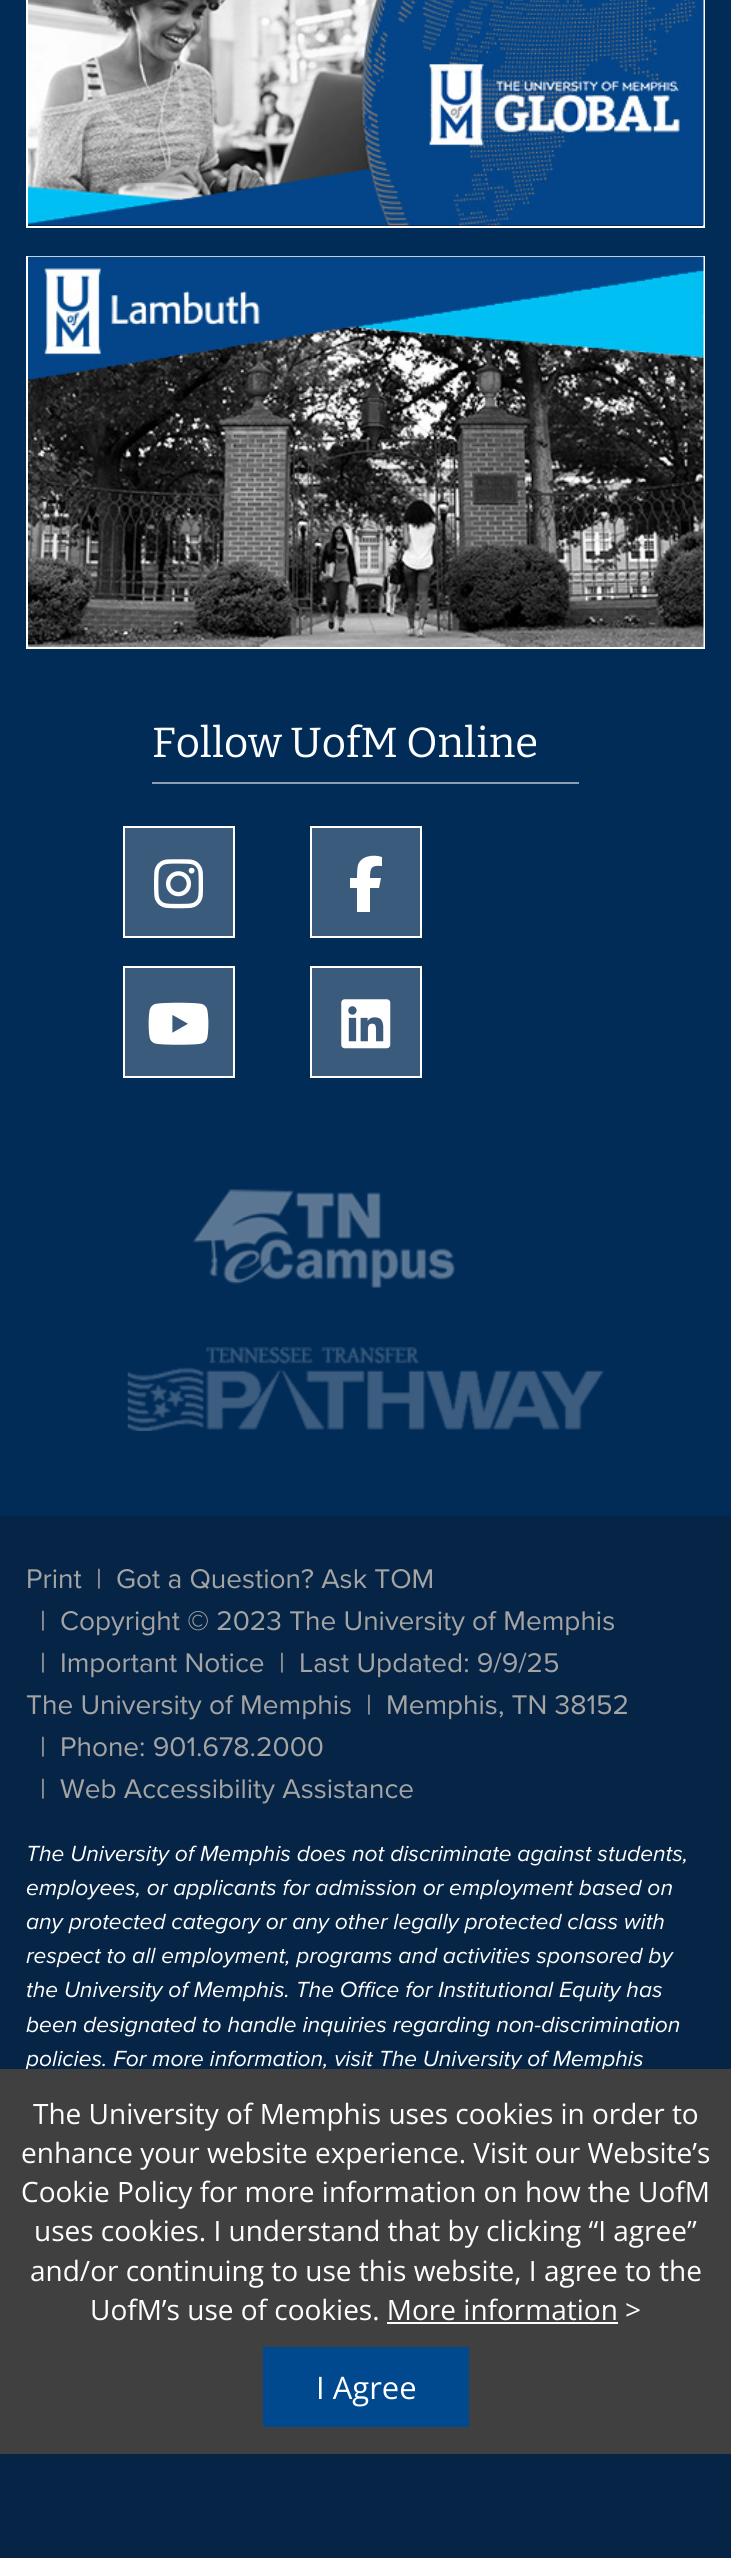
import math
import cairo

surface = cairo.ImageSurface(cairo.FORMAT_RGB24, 731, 2558)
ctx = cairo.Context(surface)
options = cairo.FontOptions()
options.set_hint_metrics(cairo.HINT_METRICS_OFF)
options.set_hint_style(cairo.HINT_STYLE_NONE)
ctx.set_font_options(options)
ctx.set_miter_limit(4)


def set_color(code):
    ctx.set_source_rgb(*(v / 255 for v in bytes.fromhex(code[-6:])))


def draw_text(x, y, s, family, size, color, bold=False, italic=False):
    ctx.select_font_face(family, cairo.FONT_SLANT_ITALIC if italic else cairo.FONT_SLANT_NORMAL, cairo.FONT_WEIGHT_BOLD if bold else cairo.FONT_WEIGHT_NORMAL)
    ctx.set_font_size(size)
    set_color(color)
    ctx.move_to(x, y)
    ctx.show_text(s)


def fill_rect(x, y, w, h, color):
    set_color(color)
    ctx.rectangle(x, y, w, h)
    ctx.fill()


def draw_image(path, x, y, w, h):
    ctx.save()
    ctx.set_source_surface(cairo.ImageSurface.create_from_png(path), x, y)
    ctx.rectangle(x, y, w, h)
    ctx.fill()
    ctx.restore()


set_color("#012c58")
ctx.paint()
fill_rect(28, 225, 675, 1, "#0c203c")
ctx.rectangle(27, -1, 677, 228)
set_color("#ffffff")
ctx.stroke()
draw_image("assets/img1.png", 28, 0, 676, 226)
ctx.rectangle(27, 257, 677, 391)
ctx.stroke()
draw_image("assets/img2.png", 28, 256, 676, 391)
fill_rect(152, 782, 427, 2, "#8c9fb2")
draw_text(152, 757, "Follow UofM Online", "Bitter", 42, "#ffffff")
set_color("#3b5b7c")
ctx.rectangle(124, 827, 110, 110)
ctx.fill_preserve()
set_color("#ffffff")
ctx.stroke()
draw_image("assets/img3.png", 154, 859, 49, 50)
set_color("#3b5b7c")
ctx.rectangle(311, 827, 110, 110)
ctx.fill_preserve()
set_color("#ffffff")
ctx.stroke()
ctx.new_path()
ctx.move_to(357, 888)
ctx.line_to(357, 912)
ctx.line_to(357, 888)
ctx.line_to(357, 912)
ctx.line_to(370, 912)
ctx.line_to(370, 888)
ctx.line_to(379, 888)
ctx.line_to(381, 878)
ctx.line_to(370, 878)
ctx.curve_to(370, 868, 371, 865, 382, 866)
ctx.line_to(382, 857)
ctx.curve_to(373, 854, 361, 856, 358, 865)
ctx.curve_to(357, 869, 357, 874, 357, 878)
ctx.line_to(350, 878)
ctx.line_to(350, 888)
ctx.close_path()
ctx.fill()
set_color("#3b5b7c")
ctx.rectangle(124, 967, 110, 110)
ctx.fill_preserve()
set_color("#ffffff")
ctx.stroke()
draw_image("assets/img4.png", 148, 1002, 61, 43)
set_color("#3b5b7c")
ctx.rectangle(311, 967, 110, 110)
ctx.fill_preserve()
set_color("#ffffff")
ctx.stroke()
draw_image("assets/img5.png", 341, 999, 50, 50)
draw_image("assets/img6.png", 192, 1189, 263, 99)
draw_image("assets/img7.png", 127, 1347, 477, 84)
fill_rect(0, 1516, 731, 1042, "#062546")
draw_text(26, 1588, "Print", "Proxima Nova", 28, "#a5a4a4")
draw_text(96, 1588, "|", "Proxima Nova", 28, "#a5a4a4")
draw_text(116, 1588, "Got a Question? Ask TOM", "Proxima Nova", 28, "#a5a4a4")
draw_text(40, 1630, "|", "Proxima Nova", 28, "#a5a4a4")
draw_text(60, 1630, "Copyright © 2023 The University of Memphis", "Proxima Nova", 28, "#a5a4a4")
draw_text(40, 1672, "|", "Proxima Nova", 28, "#a5a4a4")
draw_text(60, 1672, "Important Notice", "Proxima Nova", 28, "#a5a4a4")
draw_text(279, 1672, "|", "Proxima Nova", 28, "#a5a4a4")
draw_text(299, 1672, "Last Updated: 9/9/25", "Proxima Nova", 28, "#a5a4a4")
draw_text(26, 1714, "The University of Memphis", "Proxima Nova", 28, "#a5a4a4")
draw_text(366, 1714, "|", "Proxima Nova", 28, "#a5a4a4")
draw_text(386, 1714, "Memphis, TN 38152", "Proxima Nova", 28, "#a5a4a4")
draw_text(40, 1756, "|", "Proxima Nova", 28, "#a5a4a4")
draw_text(60, 1756, "Phone: 901.678.2000", "Proxima Nova", 28, "#a5a4a4")
draw_text(40, 1798, "|", "Proxima Nova", 28, "#a5a4a4")
draw_text(60, 1798, "Web Accessibility Assistance", "Proxima Nova", 28, "#a5a4a4")
draw_text(26, 1861, "The University of Memphis does not discriminate against students,", "Proxima Nova", 22.75, "#ffffff", italic=True)
draw_text(26, 1895, "employees, or applicants for admission or employment based on", "Proxima Nova", 22.75, "#ffffff", italic=True)
draw_text(26, 1929, "any protected category or any other legally protected class with", "Proxima Nova", 22.75, "#ffffff", italic=True)
draw_text(26, 1963, "respect to all employment, programs and activities sponsored by", "Proxima Nova", 22.75, "#ffffff", italic=True)
draw_text(26, 1997, "the University of Memphis. The Office for Institutional Equity has", "Proxima Nova", 22.75, "#ffffff", italic=True)
draw_text(26, 2032, "been designated to handle inquiries regarding non-discrimination", "Proxima Nova", 22.75, "#ffffff", italic=True)
draw_text(26, 2066, "policies. For more information, visit The University of Memphis", "Proxima Nova", 22.75, "#ffffff", italic=True)
fill_rect(0, 2069, 731, 385, "#404040")
draw_text(33, 2124, "The University of Memphis uses cookies in order to", "Open Sans", 28, "#ffffff")
draw_text(21, 2163, "enhance your website experience. Visit our Website’s", "Open Sans", 28, "#ffffff")
draw_text(21, 2202, "Cookie Policy for more information on how the UofM", "Open Sans", 28, "#ffffff")
draw_text(34, 2241, "uses cookies. I understand that by clicking “I agree”", "Open Sans", 28, "#ffffff")
draw_text(30, 2281, "and/or continuing to use this website, I agree to the", "Open Sans", 28, "#ffffff")
draw_text(90, 2320, "UofM’s use of cookies. More information >", "Open Sans", 28, "#ffffff")
fill_rect(387, 2322, 231, 2, "#ffffff")
fill_rect(263, 2347, 206, 80, "#00498f")
draw_text(316, 2399, "I Agree", "Open Sans", 31, "#ffffff")
surface.write_to_png("output.png")
